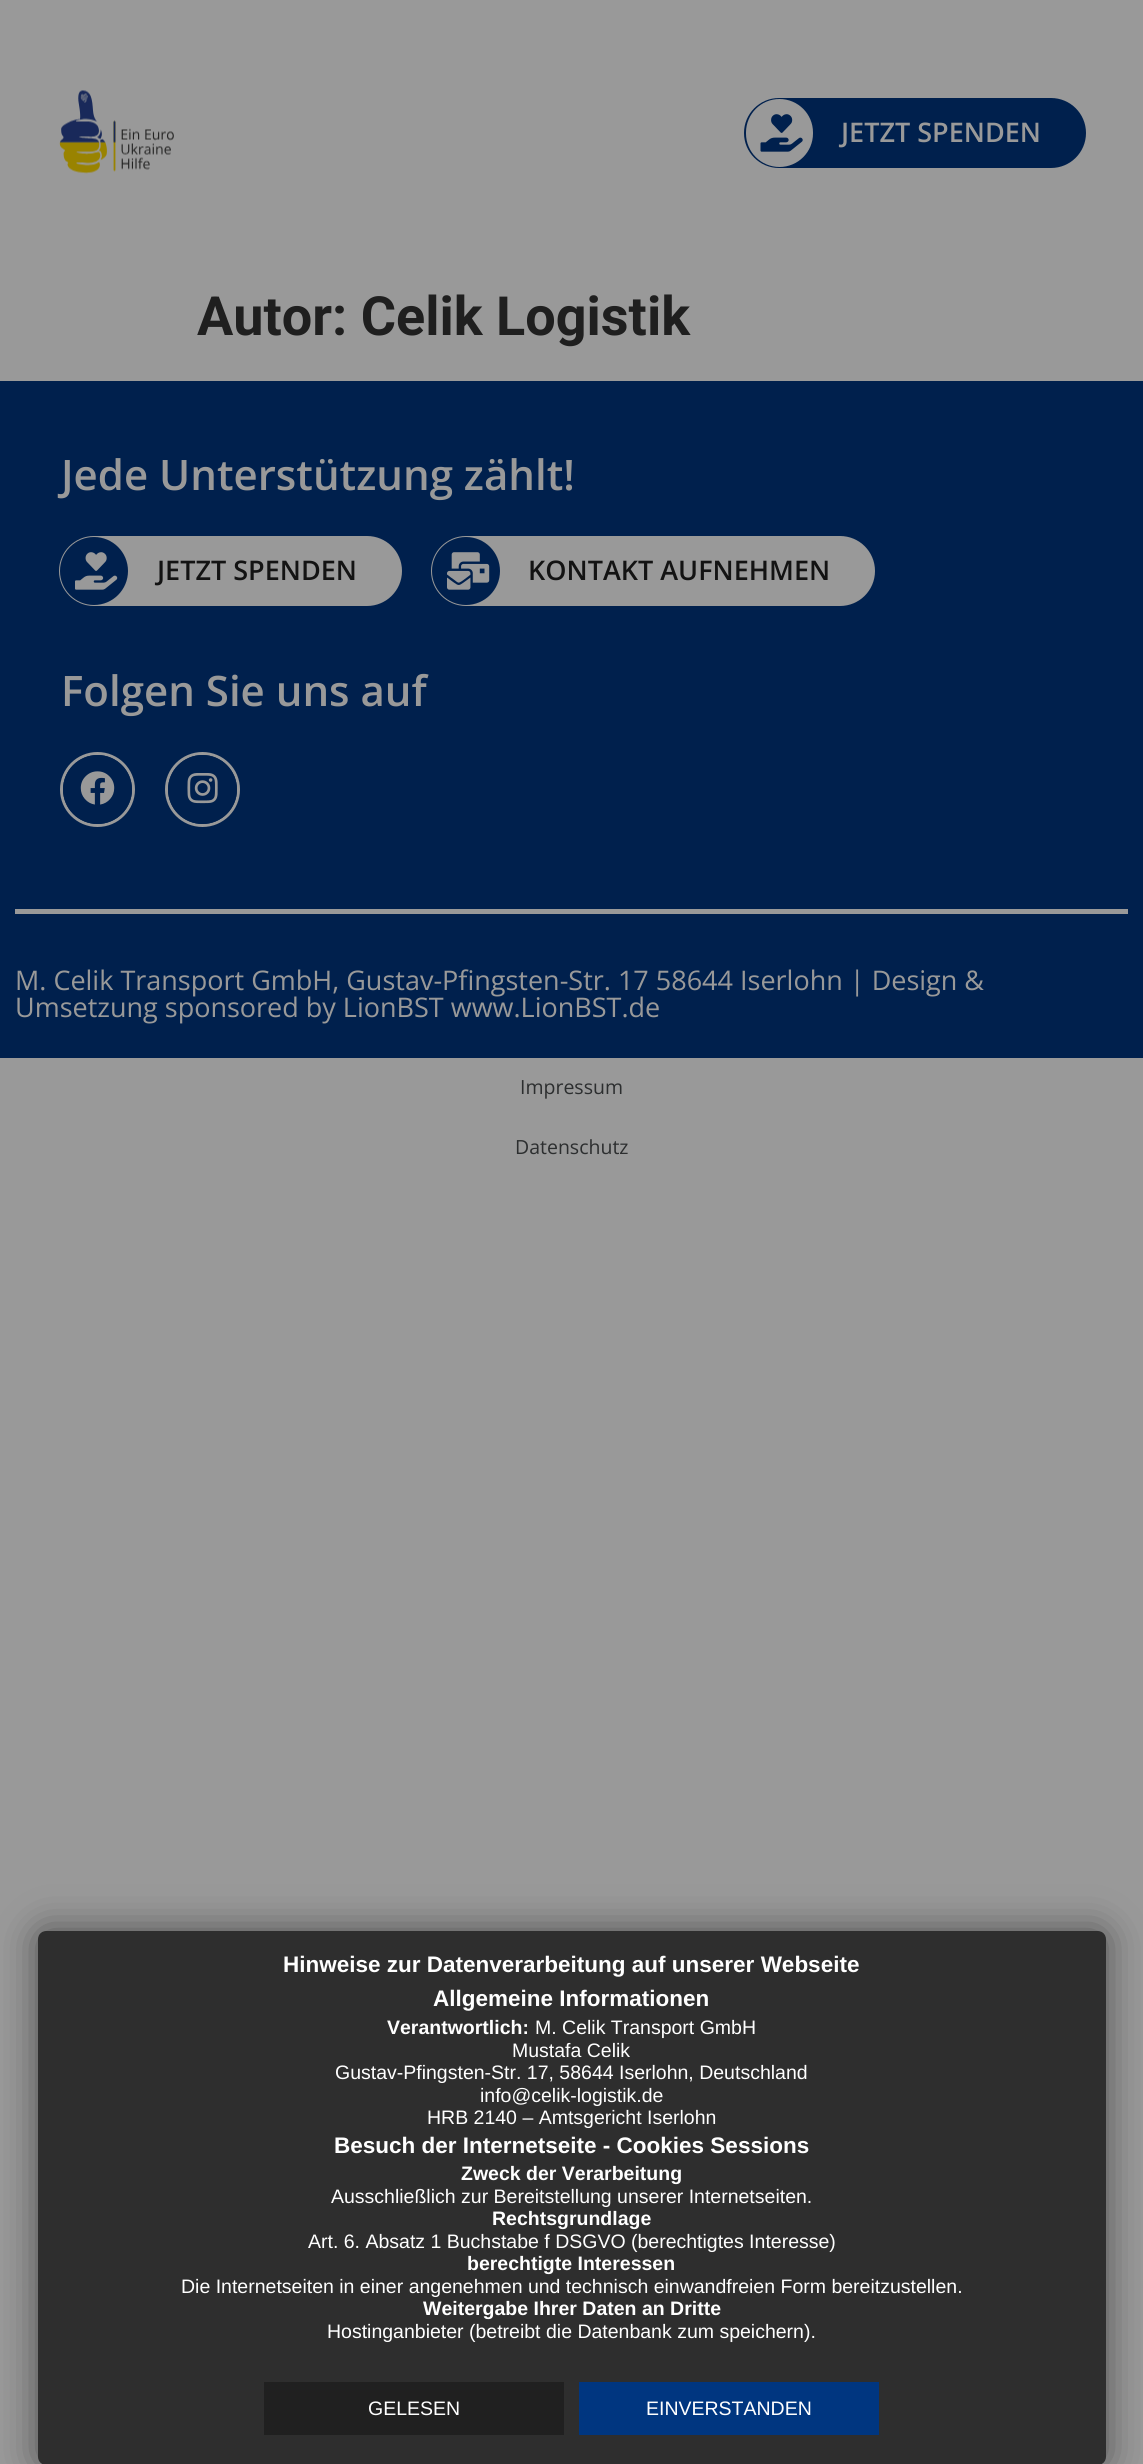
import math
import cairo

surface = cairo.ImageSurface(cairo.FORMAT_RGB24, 1143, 2464)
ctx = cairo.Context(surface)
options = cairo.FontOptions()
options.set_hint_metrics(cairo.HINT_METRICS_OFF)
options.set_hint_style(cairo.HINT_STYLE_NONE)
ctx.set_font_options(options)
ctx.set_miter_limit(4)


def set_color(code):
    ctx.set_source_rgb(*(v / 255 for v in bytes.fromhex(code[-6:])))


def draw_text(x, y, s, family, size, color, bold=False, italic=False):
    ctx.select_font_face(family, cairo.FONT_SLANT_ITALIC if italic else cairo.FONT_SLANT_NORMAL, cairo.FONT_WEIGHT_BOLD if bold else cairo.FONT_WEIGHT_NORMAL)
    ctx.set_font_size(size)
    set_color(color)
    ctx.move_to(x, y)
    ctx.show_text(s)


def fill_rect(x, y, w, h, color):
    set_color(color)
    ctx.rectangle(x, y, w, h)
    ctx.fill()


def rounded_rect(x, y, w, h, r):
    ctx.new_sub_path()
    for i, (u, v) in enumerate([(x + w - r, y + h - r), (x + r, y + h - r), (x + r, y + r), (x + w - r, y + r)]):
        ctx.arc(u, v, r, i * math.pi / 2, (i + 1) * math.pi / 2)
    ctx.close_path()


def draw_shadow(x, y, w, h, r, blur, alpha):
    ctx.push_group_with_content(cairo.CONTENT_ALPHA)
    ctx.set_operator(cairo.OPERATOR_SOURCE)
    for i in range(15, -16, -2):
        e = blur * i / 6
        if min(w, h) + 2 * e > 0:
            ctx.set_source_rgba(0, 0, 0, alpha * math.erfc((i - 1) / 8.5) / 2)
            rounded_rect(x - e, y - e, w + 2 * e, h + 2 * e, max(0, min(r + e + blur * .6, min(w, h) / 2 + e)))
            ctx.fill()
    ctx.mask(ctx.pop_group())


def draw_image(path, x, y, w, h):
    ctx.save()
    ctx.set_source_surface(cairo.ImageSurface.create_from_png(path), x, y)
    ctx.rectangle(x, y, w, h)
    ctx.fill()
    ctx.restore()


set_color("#999999")
ctx.paint()
draw_image("assets/img1.png", 59, 90, 115, 84)
set_color("#00204d")
rounded_rect(744, 98, 342, 70, 35)
ctx.fill()
set_color("#999999")
rounded_rect(746, 99, 67, 68, 33.5)
ctx.fill()
draw_image("assets/img2.png", 760, 114, 43, 38)
draw_text(841, 142, "JETZT SPENDEN", "Open Sans SemiBold", 27, "#999999")
draw_text(197, 335, "Autor: Celik Logistik", "Roboto", 54, "#1f1f1f", bold=True)
fill_rect(0, 381, 1143, 677, "#00204d")
draw_text(61, 490, "Jede Unterstützung zählt!", "Open Sans SemiBold", 42, "#999999")
rounded_rect(59, 536, 343, 70, 35)
ctx.fill()
set_color("#00204d")
ctx.arc(94, 571, 34, 0, 2 * math.pi)
ctx.fill()
draw_image("assets/img3.png", 75, 552, 43, 38)
draw_text(157, 580, "JETZT SPENDEN", "Open Sans SemiBold", 27, "#131313")
set_color("#999999")
rounded_rect(431, 536, 444, 70, 35)
ctx.fill()
set_color("#00204d")
ctx.arc(466, 571, 34, 0, 2 * math.pi)
ctx.fill()
draw_image("assets/img4.png", 447, 552, 43, 38)
draw_text(528, 580, "KONTAKT AUFNEHMEN", "Open Sans SemiBold", 27, "#131313")
draw_text(61, 706, "Folgen Sie uns auf", "Open Sans SemiBold", 42, "#999999")
ctx.new_path()
ctx.arc(97.5, 789.5, 36, 0, 2 * math.pi)
ctx.set_line_width(3)
ctx.stroke()
set_color("#00204d")
ctx.arc(97.5, 789.5, 34.5, 0, 2 * math.pi)
ctx.fill()
draw_image("assets/img5.png", 80, 771, 35, 34)
ctx.arc(202.5, 789.5, 36, 0, 2 * math.pi)
set_color("#999999")
ctx.stroke()
set_color("#00204d")
ctx.arc(202.5, 789.5, 34.5, 0, 2 * math.pi)
ctx.fill()
draw_image("assets/img6.png", 187, 773, 31, 31)
fill_rect(15, 909, 1113, 5, "#999999")
draw_text(15, 990, "M. Celik Transport GmbH, Gustav-Pfingsten-Str. 17 58644 Iserlohn | Design &", "Open Sans", 27, "#999999")
draw_text(15, 1017, "Umsetzung sponsored by LionBST www.LionBST.de", "Open Sans", 27, "#999999")
draw_text(520, 1094, "Impressum", "Open Sans", 19.5, "#2c2e2f")
draw_text(515, 1154, "Datenschutz", "Open Sans", 19.5, "#2c2e2f")
ctx.save()
ctx.set_fill_rule(cairo.FILL_RULE_EVEN_ODD)
ctx.new_path()
ctx.move_to(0, 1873)
ctx.line_to(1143, 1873)
ctx.line_to(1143, 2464)
ctx.line_to(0, 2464)
ctx.close_path()
ctx.move_to(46, 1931)
ctx.line_to(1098, 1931)
ctx.curve_to(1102.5, 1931, 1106, 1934.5, 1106, 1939)
ctx.line_to(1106, 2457)
ctx.curve_to(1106, 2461.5, 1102.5, 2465, 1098, 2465)
ctx.line_to(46, 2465)
ctx.curve_to(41.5, 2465, 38, 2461.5, 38, 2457)
ctx.line_to(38, 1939)
ctx.curve_to(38, 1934.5, 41.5, 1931, 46, 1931)
ctx.close_path()
ctx.clip()
set_color("#000000")
draw_shadow(38, 1931, 1068, 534, 8, 19, 0.5)
ctx.restore()
ctx.set_source_rgba(0, 0, 0, 0.7)
rounded_rect(38, 1931, 1068, 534, 8)
ctx.fill()
draw_text(283, 1972, "Hinweise zur Datenverarbeitung auf unserer Webseite", "Liberation Sans", 22.5, "#ffffff", bold=True)
draw_text(433, 2006, "Allgemeine Informationen", "Liberation Sans", 22.5, "#ffffff", bold=True)
draw_text(387, 2034, "Verantwortlich:", "Liberation Sans", 19.5, "#ffffff", bold=True)
draw_text(535, 2034, "M. Celik Transport GmbH", "Liberation Sans", 19.5, "#ffffff")
draw_text(512, 2057, "Mustafa Celik", "Liberation Sans", 19.5, "#ffffff")
draw_text(335, 2079, "Gustav-Pfingsten-Str. 17, 58644 Iserlohn, Deutschland", "Liberation Sans", 19.5, "#ffffff")
draw_text(480, 2102, "info@celik-logistik.de", "Liberation Sans", 19.5, "#ffffff")
draw_text(427, 2124, "HRB 2140 – Amtsgericht Iserlohn", "Liberation Sans", 19.5, "#ffffff")
draw_text(334, 2153, "Besuch der Internetseite - Cookies Sessions", "Liberation Sans", 22.5, "#ffffff", bold=True)
draw_text(461, 2180, "Zweck der Verarbeitung", "Liberation Sans", 19.5, "#ffffff", bold=True)
draw_text(331, 2203, "Ausschließlich zur Bereitstellung unserer Internetseiten.", "Liberation Sans", 19.5, "#ffffff")
draw_text(492, 2225, "Rechtsgrundlage", "Liberation Sans", 19.5, "#ffffff", bold=True)
draw_text(308, 2248, "Art. 6. Absatz 1 Buchstabe f DSGVO (berechtigtes Interesse)", "Liberation Sans", 19.5, "#ffffff")
draw_text(467, 2270, "berechtigte Interessen", "Liberation Sans", 19.5, "#ffffff", bold=True)
draw_text(181, 2293, "Die Internetseiten in einer angenehmen und technisch einwandfreien Form bereitzustellen.", "Liberation Sans", 19.5, "#ffffff")
draw_text(423, 2315, "Weitergabe Ihrer Daten an Dritte", "Liberation Sans", 19.5, "#ffffff", bold=True)
draw_text(327, 2338, "Hostinganbieter (betreibt die Datenbank zum speichern).", "Liberation Sans", 19.5, "#ffffff")
fill_rect(264, 2382, 300, 53, "#202020")
draw_text(368, 2415, "GELESEN", "Liberation Sans", 19.5, "#ffffff")
fill_rect(579, 2382, 300, 53, "#003680")
draw_text(646, 2415, "EINVERSTANDEN", "Liberation Sans", 19.5, "#ffffff")
surface.write_to_png("output.png")
